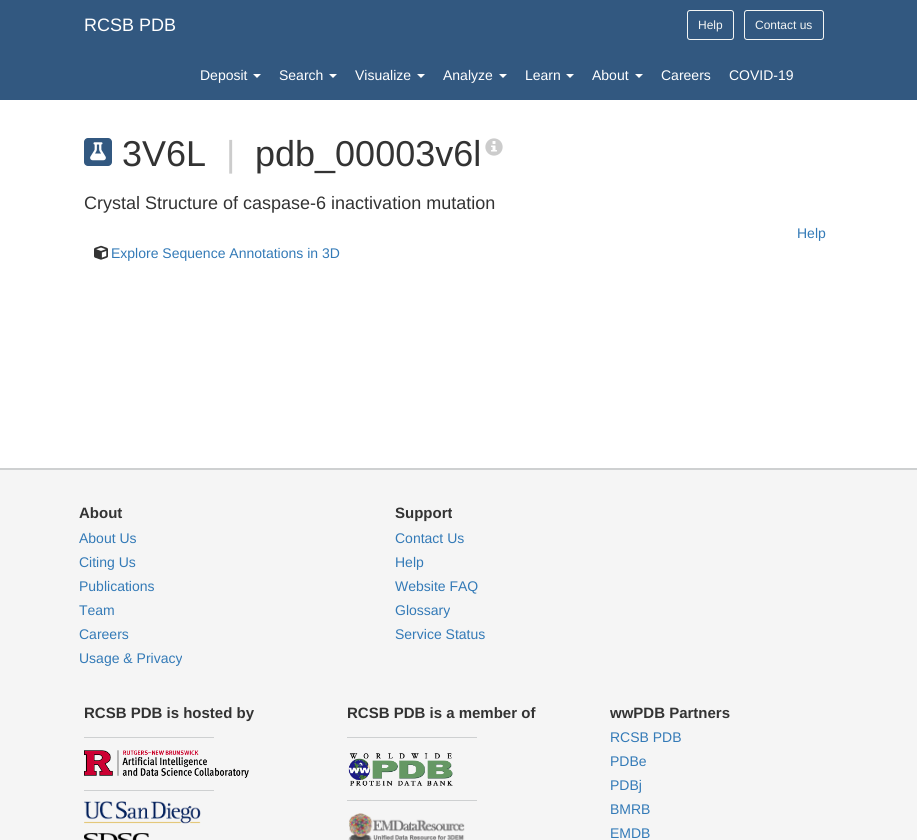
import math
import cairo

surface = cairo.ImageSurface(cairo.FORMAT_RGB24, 917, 840)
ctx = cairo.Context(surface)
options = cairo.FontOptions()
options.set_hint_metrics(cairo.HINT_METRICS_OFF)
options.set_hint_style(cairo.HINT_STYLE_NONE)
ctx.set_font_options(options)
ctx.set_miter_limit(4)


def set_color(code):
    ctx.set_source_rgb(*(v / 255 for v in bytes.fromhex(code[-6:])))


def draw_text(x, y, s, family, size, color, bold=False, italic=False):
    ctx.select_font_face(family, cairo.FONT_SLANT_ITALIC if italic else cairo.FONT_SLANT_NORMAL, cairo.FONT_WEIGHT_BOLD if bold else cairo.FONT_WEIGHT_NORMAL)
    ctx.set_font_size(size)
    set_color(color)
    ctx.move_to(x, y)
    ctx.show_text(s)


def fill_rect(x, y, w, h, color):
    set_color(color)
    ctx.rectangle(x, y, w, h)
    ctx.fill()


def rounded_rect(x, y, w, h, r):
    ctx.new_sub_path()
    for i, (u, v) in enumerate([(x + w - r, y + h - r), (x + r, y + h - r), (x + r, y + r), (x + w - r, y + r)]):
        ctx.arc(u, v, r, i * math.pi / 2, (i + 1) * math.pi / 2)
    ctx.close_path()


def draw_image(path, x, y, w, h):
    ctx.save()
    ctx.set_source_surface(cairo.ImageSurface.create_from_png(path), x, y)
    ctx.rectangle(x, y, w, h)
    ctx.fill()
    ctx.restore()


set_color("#ffffff")
ctx.paint()
fill_rect(0, 0, 917, 100, "#325880")
draw_text(84, 31, "RCSB PDB", "Liberation Sans", 18, "#ffffff")
rounded_rect(687.5, 10.5, 46, 29, 2.5)
set_color("#f3f5f4")
ctx.set_line_width(1)
ctx.stroke()
draw_text(698, 29, "Help", "Liberation Sans", 12, "#f3f5f4")
rounded_rect(744.5, 10.5, 79, 29, 2.5)
ctx.stroke()
draw_text(755, 29, "Contact us", "Liberation Sans", 12, "#f3f5f4")
draw_text(200, 80, "Deposit", "Liberation Sans", 14, "#ffffff")
ctx.new_path()
ctx.move_to(253, 74)
ctx.line_to(261, 74)
ctx.line_to(257, 78)
ctx.close_path()
ctx.fill()
draw_text(279, 80, "Search", "Liberation Sans", 14, "#ffffff")
ctx.new_path()
ctx.move_to(329, 74)
ctx.line_to(337, 74)
ctx.line_to(333, 78)
ctx.close_path()
ctx.fill()
draw_text(355, 80, "Visualize", "Liberation Sans", 14, "#ffffff")
ctx.new_path()
ctx.move_to(417, 74)
ctx.line_to(425, 74)
ctx.line_to(421, 78)
ctx.close_path()
ctx.fill()
draw_text(443, 80, "Analyze", "Liberation Sans", 14, "#ffffff")
ctx.new_path()
ctx.move_to(499, 74)
ctx.line_to(507, 74)
ctx.line_to(503, 78)
ctx.close_path()
ctx.fill()
draw_text(525, 80, "Learn", "Liberation Sans", 14, "#ffffff")
ctx.new_path()
ctx.move_to(566, 74)
ctx.line_to(574, 74)
ctx.line_to(570, 78)
ctx.close_path()
ctx.fill()
draw_text(592, 80, "About", "Liberation Sans", 14, "#ffffff")
ctx.new_path()
ctx.move_to(635, 74)
ctx.line_to(643, 74)
ctx.line_to(639, 78)
ctx.close_path()
ctx.fill()
draw_text(661, 80, "Careers", "Liberation Sans", 14, "#ffffff")
draw_text(729, 80, "COVID-19", "Liberation Sans", 14, "#ffffff")
set_color("#325880")
rounded_rect(84, 138, 28, 28, 4)
ctx.fill()
draw_image("assets/img1.png", 90, 142, 16, 19)
draw_text(122, 166, "3V6L", "Liberation Sans", 36, "#333333")
draw_text(226, 166, "|", "Liberation Sans", 36, "#cccccc")
draw_text(255, 166, "pdb_00003v6l", "Liberation Sans", 36, "#333333")
draw_image("assets/img2.png", 485, 138, 18, 18)
draw_text(84, 209, "Crystal Structure of caspase-6 inactivation mutation", "Liberation Sans", 18, "#333333")
draw_text(797, 238, "Help", "Liberation Sans", 14, "#337ab7")
draw_image("assets/img3.png", 94, 245, 14, 15)
draw_text(111, 258, "Explore Sequence Annotations in 3D", "Liberation Sans", 14, "#337ab7")
fill_rect(0, 470, 917, 370, "#f5f5f5")
fill_rect(0, 468, 917, 2, "#ced0d1")
draw_text(79, 518, "About", "Liberation Sans", 15, "#333333", bold=True)
draw_text(79, 543, "About Us", "Liberation Sans", 14, "#337ab7")
draw_text(79, 567, "Citing Us", "Liberation Sans", 14, "#337ab7")
draw_text(79, 591, "Publications", "Liberation Sans", 14, "#337ab7")
draw_text(79, 615, "Team", "Liberation Sans", 14, "#337ab7")
draw_text(79, 639, "Careers", "Liberation Sans", 14, "#337ab7")
draw_text(79, 663, "Usage & Privacy", "Liberation Sans", 14, "#337ab7")
draw_text(395, 518, "Support", "Liberation Sans", 15, "#333333", bold=True)
draw_text(395, 543, "Contact Us", "Liberation Sans", 14, "#337ab7")
draw_text(395, 567, "Help", "Liberation Sans", 14, "#337ab7")
draw_text(395, 591, "Website FAQ", "Liberation Sans", 14, "#337ab7")
draw_text(395, 615, "Glossary", "Liberation Sans", 14, "#337ab7")
draw_text(395, 639, "Service Status", "Liberation Sans", 14, "#337ab7")
draw_text(84, 718, "RCSB PDB is hosted by", "Liberation Sans", 15, "#333333", bold=True)
fill_rect(84, 737, 130, 1, "#ced0d1")
draw_image("assets/img4.png", 84, 750, 165, 28)
fill_rect(84, 790, 130, 1, "#ced0d1")
draw_image("assets/img5.png", 84, 801, 117, 23)
draw_image("assets/img6.png", 84, 833, 65, 7)
draw_text(347, 718, "RCSB PDB is a member of", "Liberation Sans", 15, "#333333", bold=True)
fill_rect(347, 737, 130, 1, "#ced0d1")
draw_image("assets/img7.png", 348, 753, 105, 33)
fill_rect(347, 800, 130, 1, "#ced0d1")
draw_image("assets/img8.png", 348, 813, 117, 27)
draw_text(610, 718, "wwPDB Partners", "Liberation Sans", 15, "#333333", bold=True)
draw_text(610, 742, "RCSB PDB", "Liberation Sans", 14, "#337ab7")
draw_text(610, 766, "PDBe", "Liberation Sans", 14, "#337ab7")
draw_text(610, 790, "PDBj", "Liberation Sans", 14, "#337ab7")
draw_text(610, 814, "BMRB", "Liberation Sans", 14, "#337ab7")
draw_text(610, 838, "EMDB", "Liberation Sans", 14, "#337ab7")
surface.write_to_png("output.png")
